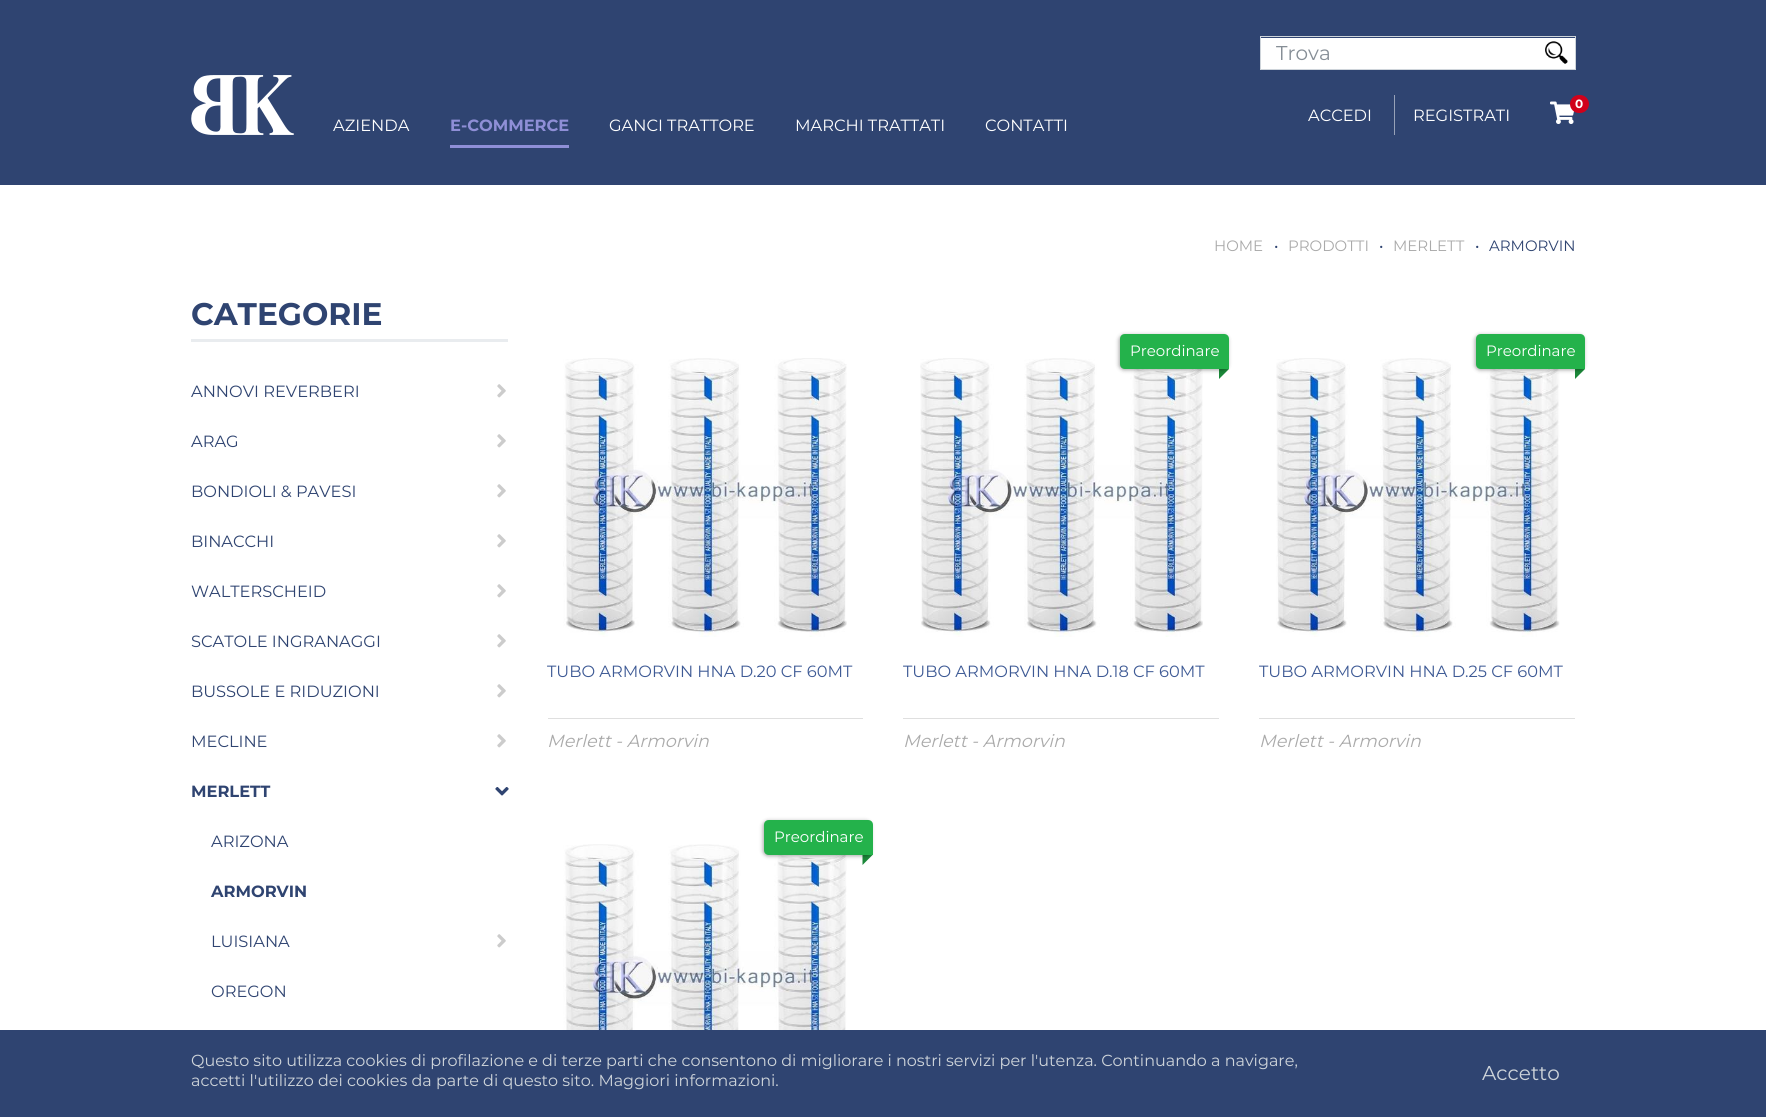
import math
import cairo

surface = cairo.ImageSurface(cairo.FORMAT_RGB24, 1766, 1117)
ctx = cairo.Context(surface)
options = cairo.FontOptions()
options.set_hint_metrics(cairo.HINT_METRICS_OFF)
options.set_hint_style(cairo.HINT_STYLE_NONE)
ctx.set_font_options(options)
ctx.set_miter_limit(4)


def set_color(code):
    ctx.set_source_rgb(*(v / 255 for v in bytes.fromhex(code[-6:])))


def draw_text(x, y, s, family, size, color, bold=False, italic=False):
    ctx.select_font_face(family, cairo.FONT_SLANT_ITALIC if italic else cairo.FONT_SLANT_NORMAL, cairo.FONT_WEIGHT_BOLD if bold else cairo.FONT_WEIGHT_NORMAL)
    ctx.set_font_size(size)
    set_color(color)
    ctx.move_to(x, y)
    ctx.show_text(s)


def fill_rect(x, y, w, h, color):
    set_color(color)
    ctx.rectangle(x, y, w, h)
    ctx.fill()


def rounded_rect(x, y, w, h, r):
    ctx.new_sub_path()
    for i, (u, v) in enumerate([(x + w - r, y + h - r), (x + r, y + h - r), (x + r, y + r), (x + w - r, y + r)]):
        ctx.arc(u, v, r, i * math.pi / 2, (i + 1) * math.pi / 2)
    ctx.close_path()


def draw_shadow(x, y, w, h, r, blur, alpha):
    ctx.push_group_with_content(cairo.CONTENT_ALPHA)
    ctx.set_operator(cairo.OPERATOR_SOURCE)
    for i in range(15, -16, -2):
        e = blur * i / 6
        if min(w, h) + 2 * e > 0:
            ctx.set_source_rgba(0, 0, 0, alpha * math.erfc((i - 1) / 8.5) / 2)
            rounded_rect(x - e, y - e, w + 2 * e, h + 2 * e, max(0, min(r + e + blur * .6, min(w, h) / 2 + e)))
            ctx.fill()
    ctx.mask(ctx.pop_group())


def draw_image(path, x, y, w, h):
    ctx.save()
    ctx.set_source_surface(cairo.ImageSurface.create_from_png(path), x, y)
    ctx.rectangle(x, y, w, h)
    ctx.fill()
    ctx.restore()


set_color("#ffffff")
ctx.paint()
fill_rect(0, 0, 1766, 185, "#2f4471")
fill_rect(1261, 38, 314, 31, "#ffffff")
ctx.rectangle(1260.5, 36.5, 315, 33)
set_color("#ced4da")
ctx.set_line_width(1)
ctx.stroke()
draw_text(1276, 60, "Trova", "Montserrat", 20, "#868e96")
draw_image("assets/img1.png", 1545, 41, 23, 23)
draw_image("assets/img2.png", 191, 75, 103, 60)
draw_image("assets/img3.png", 1550, 101, 24, 23)
set_color("#d0011b")
rounded_rect(1570, 95, 19, 18, 9)
ctx.fill()
draw_text(1575, 108, "0", "Montserrat", 12, "#ffffff", bold=True)
draw_text(1308, 121, "ACCEDI", "Montserrat", 16.25, "#ffffff")
fill_rect(1394, 95, 1, 40, "#97a2b8")
draw_text(1413, 121, "REGISTRATI", "Montserrat", 16.25, "#ffffff")
draw_text(333, 131, "AZIENDA", "Montserrat", 16.25, "#ffffff")
draw_text(450, 131, "E-COMMERCE", "Montserrat", 16.25, "#8f8fd7", bold=True)
fill_rect(450, 145, 119, 3, "#8f8fd7")
draw_text(609, 131, "GANCI TRATTORE", "Montserrat", 16.25, "#ffffff")
draw_text(795, 131, "MARCHI TRATTATI", "Montserrat", 16.25, "#ffffff")
draw_text(985, 131, "CONTATTI", "Montserrat", 16.25, "#ffffff")
draw_text(1214, 251, "HOME", "Montserrat", 15, "#aaaaaa")
draw_text(1274, 251, "•", "Montserrat", 15, "#2f4471")
draw_text(1288, 251, "PRODOTTI", "Montserrat", 15, "#aaaaaa")
draw_text(1379, 251, "•", "Montserrat", 15, "#2f4471")
draw_text(1393, 251, "MERLETT", "Montserrat", 15, "#aaaaaa")
draw_text(1475, 251, "•", "Montserrat", 15, "#2f4471")
draw_text(1489, 251, "ARMORVIN", "Montserrat", 15, "#2f4471")
draw_text(191, 325, "CATEGORIE", "Montserrat", 31.25, "#2f4471", bold=True)
fill_rect(191, 339, 317, 3, "#e9ecef")
draw_text(191, 397, "ANNOVI REVERBERI", "Montserrat", 16.25, "#2f4471")
draw_image("assets/img4.png", 497, 384, 9, 14)
draw_text(191, 447, "ARAG", "Montserrat", 16.25, "#2f4471")
draw_image("assets/img4.png", 497, 434, 9, 14)
draw_text(191, 497, "BONDIOLI & PAVESI", "Montserrat", 16.25, "#2f4471")
draw_image("assets/img4.png", 497, 484, 9, 14)
draw_text(191, 547, "BINACCHI", "Montserrat", 16.25, "#2f4471")
draw_image("assets/img4.png", 497, 534, 9, 14)
draw_text(191, 597, "WALTERSCHEID", "Montserrat", 16.25, "#2f4471")
draw_image("assets/img4.png", 497, 584, 9, 14)
draw_text(191, 647, "SCATOLE INGRANAGGI", "Montserrat", 16.25, "#2f4471")
draw_image("assets/img4.png", 497, 634, 9, 14)
draw_text(191, 697, "BUSSOLE E RIDUZIONI", "Montserrat", 16.25, "#2f4471")
draw_image("assets/img4.png", 497, 684, 9, 14)
draw_text(191, 747, "MECLINE", "Montserrat", 16.25, "#2f4471")
draw_image("assets/img4.png", 497, 734, 9, 14)
draw_text(191, 797, "MERLETT", "Montserrat", 16.25, "#2f4471", bold=True)
draw_image("assets/img5.png", 495, 787, 14, 9)
draw_text(211, 847, "ARIZONA", "Montserrat", 16.25, "#2f4471")
draw_text(211, 897, "ARMORVIN", "Montserrat", 16.25, "#2f4471", bold=True)
draw_text(211, 947, "LUISIANA", "Montserrat", 16.25, "#2f4471")
draw_image("assets/img4.png", 497, 934, 9, 14)
draw_text(211, 997, "OREGON", "Montserrat", 16.25, "#2f4471")
draw_image("assets/img6.png", 563, 358, 284, 279)
draw_text(547, 677, "TUBO ARMORVIN HNA D.20 CF 60MT", "Montserrat", 16.25, "#3e5a95")
fill_rect(548, 718, 315, 1, "#dfdfdf")
draw_text(547, 747, "Merlett - Armorvin", "Montserrat", 17.5, "#aaaaaa", italic=True)
set_color("#1b8839")
ctx.new_path()
ctx.move_to(1219, 369)
ctx.line_to(1229, 369)
ctx.line_to(1219, 379)
ctx.close_path()
ctx.fill()
draw_image("assets/img7.png", 920, 358, 283, 279)
set_color("#000000")
draw_shadow(1119, 335, 109, 35, 5, 2, 0.35)
set_color("#24b24b")
ctx.new_path()
ctx.move_to(1125, 334)
ctx.line_to(1224, 334)
ctx.curve_to(1227, 334, 1229, 336, 1229, 339)
ctx.line_to(1229, 369)
ctx.line_to(1125, 369)
ctx.curve_to(1122, 369, 1120, 367, 1120, 364)
ctx.line_to(1120, 339)
ctx.curve_to(1120, 336, 1122, 334, 1125, 334)
ctx.close_path()
ctx.fill()
draw_text(1130, 356, "Preordinare", "Montserrat", 15, "#ffffff")
draw_text(903, 677, "TUBO ARMORVIN HNA D.18 CF 60MT", "Montserrat", 16.25, "#3e5a95")
fill_rect(903, 718, 316, 1, "#dfdfdf")
draw_text(903, 747, "Merlett - Armorvin", "Montserrat", 17.5, "#aaaaaa", italic=True)
set_color("#1b8839")
ctx.new_path()
ctx.move_to(1575, 369)
ctx.line_to(1585, 369)
ctx.line_to(1575, 379)
ctx.close_path()
ctx.fill()
draw_image("assets/img8.png", 1276, 358, 284, 279)
set_color("#000000")
draw_shadow(1475, 335, 109, 35, 5, 2, 0.35)
set_color("#24b24b")
ctx.new_path()
ctx.move_to(1481, 334)
ctx.line_to(1580, 334)
ctx.curve_to(1583, 334, 1585, 336, 1585, 339)
ctx.line_to(1585, 369)
ctx.line_to(1481, 369)
ctx.curve_to(1478, 369, 1476, 367, 1476, 364)
ctx.line_to(1476, 339)
ctx.curve_to(1476, 336, 1478, 334, 1481, 334)
ctx.close_path()
ctx.fill()
draw_text(1486, 356, "Preordinare", "Montserrat", 15, "#ffffff")
draw_text(1259, 677, "TUBO ARMORVIN HNA D.25 CF 60MT", "Montserrat", 16.25, "#3e5a95")
fill_rect(1259, 718, 316, 1, "#dfdfdf")
draw_text(1259, 747, "Merlett - Armorvin", "Montserrat", 17.5, "#aaaaaa", italic=True)
set_color("#1b8839")
ctx.new_path()
ctx.move_to(862.5, 855)
ctx.line_to(872.5, 855)
ctx.line_to(862.5, 865)
ctx.close_path()
ctx.fill()
draw_image("assets/img9.png", 563, 844, 284, 186)
set_color("#000000")
draw_shadow(763, 821, 108, 35, 5, 2, 0.35)
set_color("#24b24b")
ctx.new_path()
ctx.move_to(769, 820)
ctx.line_to(868, 820)
ctx.curve_to(871, 820, 873, 822, 873, 825)
ctx.line_to(873, 855)
ctx.line_to(769, 855)
ctx.curve_to(766, 855, 764, 853, 764, 850)
ctx.line_to(764, 825)
ctx.curve_to(764, 822, 766, 820, 769, 820)
ctx.close_path()
ctx.fill()
draw_text(774, 842, "Preordinare", "Montserrat", 15, "#ffffff")
fill_rect(0, 1030, 1766, 87, "#2f4471")
draw_text(191, 1066, "Questo sito utilizza cookies di profilazione e di terze parti che consentono di migliorare i nostri servizi per l'utenza. Continuando a navigare,", "Montserrat", 16, "#ced4da")
draw_text(191, 1086, "accetti l'utilizzo dei cookies da parte di questo sito. Maggiori informazioni.", "Montserrat", 16, "#ced4da")
draw_text(1482, 1080, "Accetto", "Montserrat", 20, "#ced4da")
surface.write_to_png("output.png")
